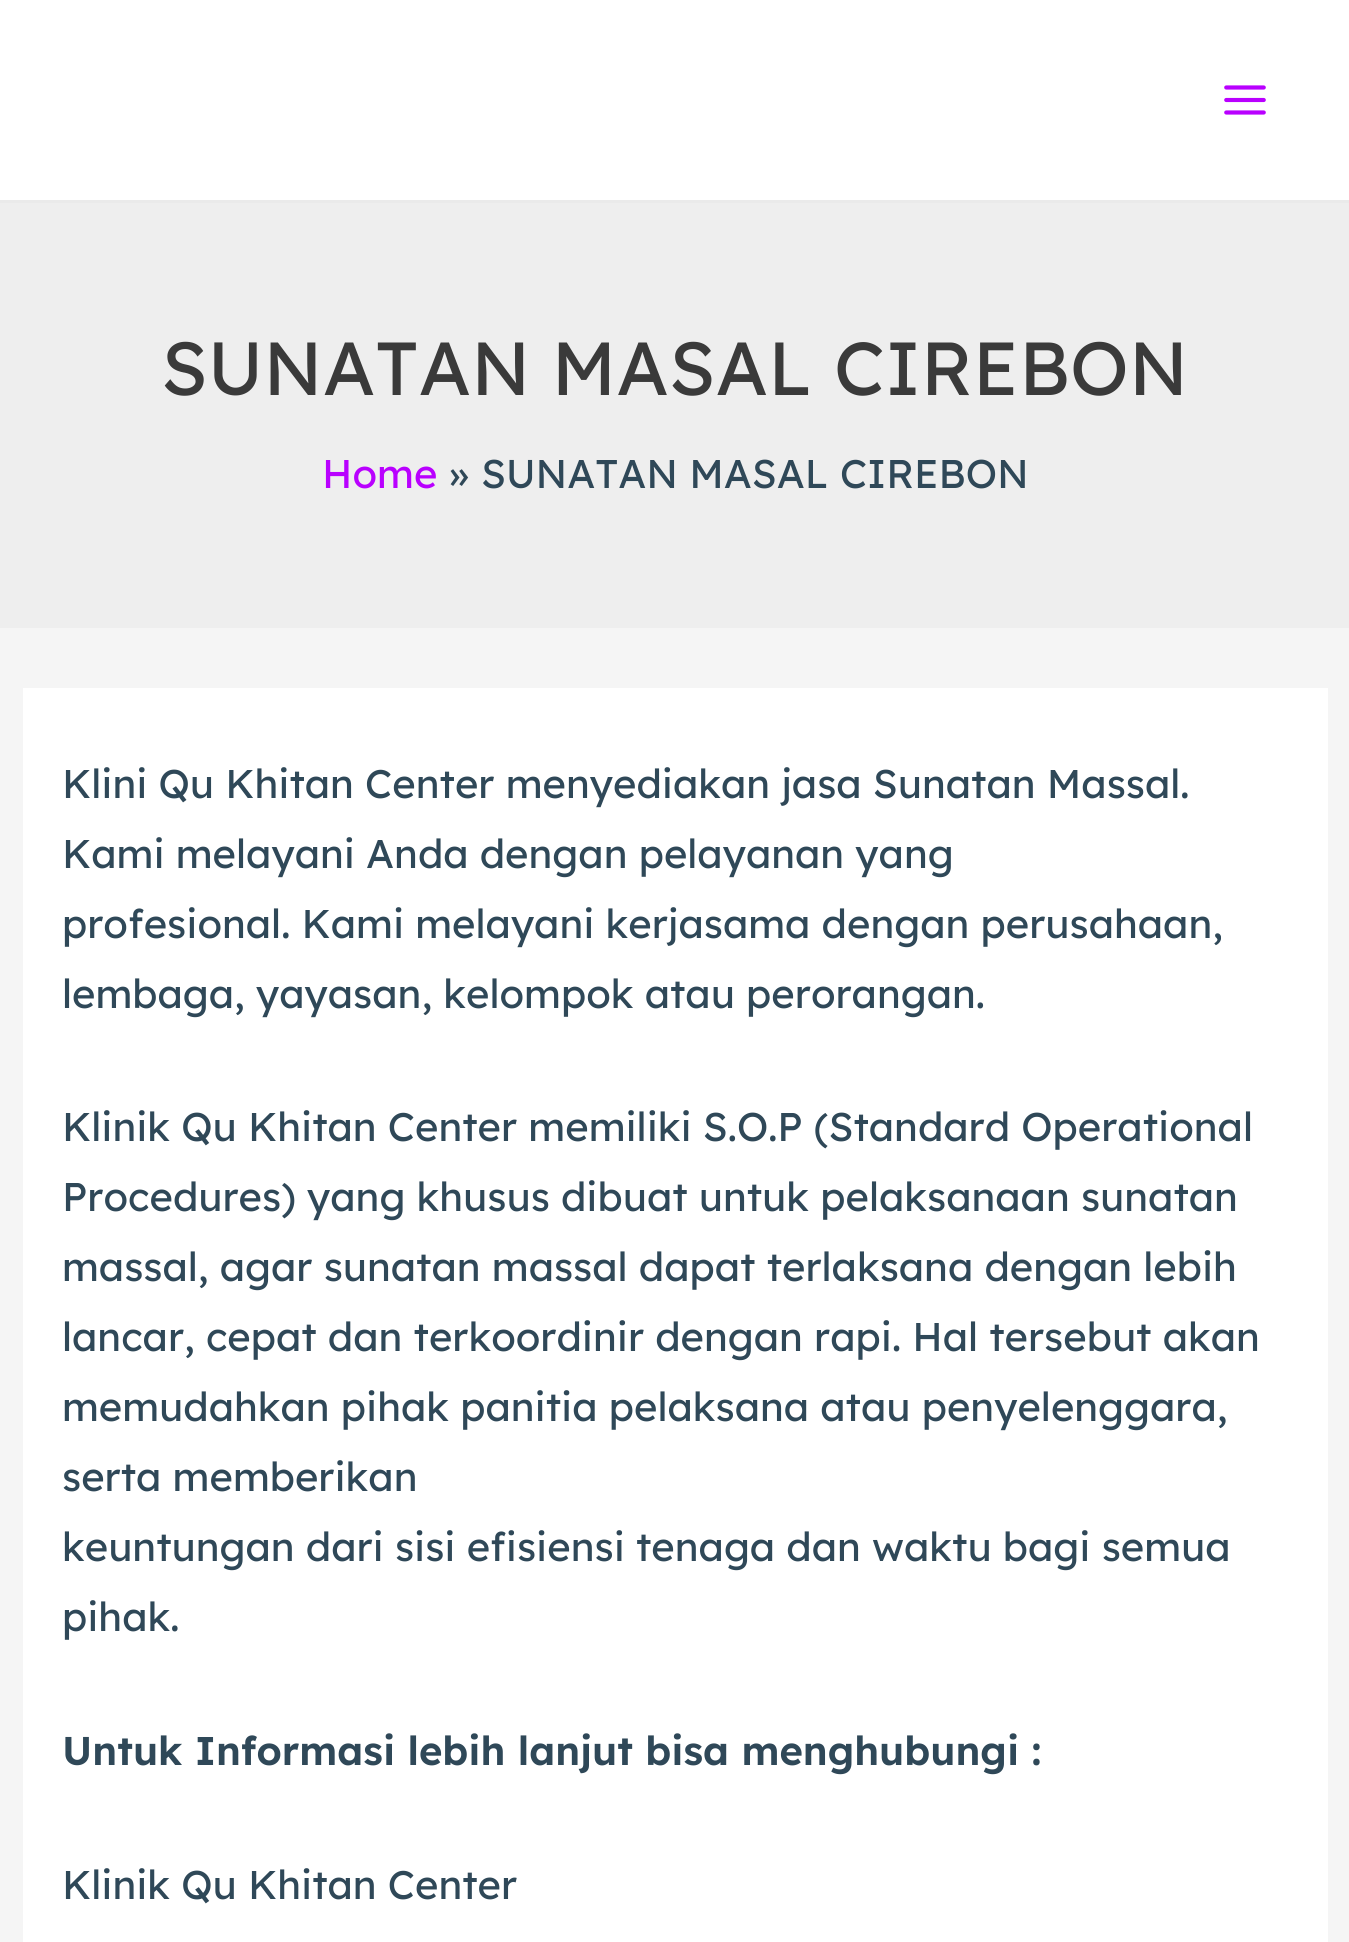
import math
import cairo

surface = cairo.ImageSurface(cairo.FORMAT_RGB24, 1349, 1942)
ctx = cairo.Context(surface)
options = cairo.FontOptions()
options.set_hint_metrics(cairo.HINT_METRICS_OFF)
options.set_hint_style(cairo.HINT_STYLE_NONE)
ctx.set_font_options(options)
ctx.set_miter_limit(4)


def set_color(code):
    ctx.set_source_rgb(*(v / 255 for v in bytes.fromhex(code[-6:])))


def draw_text(x, y, s, family, size, color, bold=False, italic=False):
    ctx.select_font_face(family, cairo.FONT_SLANT_ITALIC if italic else cairo.FONT_SLANT_NORMAL, cairo.FONT_WEIGHT_BOLD if bold else cairo.FONT_WEIGHT_NORMAL)
    ctx.set_font_size(size)
    set_color(color)
    ctx.move_to(x, y)
    ctx.show_text(s)


def fill_rect(x, y, w, h, color):
    set_color(color)
    ctx.rectangle(x, y, w, h)
    ctx.fill()


def draw_image(path, x, y, w, h):
    ctx.save()
    ctx.set_source_surface(cairo.ImageSurface.create_from_png(path), x, y)
    ctx.rectangle(x, y, w, h)
    ctx.fill()
    ctx.restore()


set_color("#f5f5f5")
ctx.paint()
fill_rect(0, 0, 1349, 200, "#ffffff")
fill_rect(0, 200, 1349, 3, "#eaeaea")
draw_image("assets/img1.png", 1224, 85, 42, 30)
fill_rect(0, 203, 1349, 425, "#eeeeee")
draw_text(161, 395, "SUNATAN MASAL CIREBON", "Lexend Deca", 75, "#3a3a3a")
draw_text(322, 488, "Home", "Lexend Deca", 40, "#b900ff")
draw_text(449, 488, "»", "Lexend Deca", 40, "#2f4858")
draw_text(481, 488, "SUNATAN MASAL CIREBON", "Lexend Deca", 40, "#2f4858")
fill_rect(23, 688, 1305, 1254, "#ffffff")
draw_text(62, 798, "Klini Qu Khitan Center menyediakan jasa Sunatan Massal.", "Lexend Deca", 40, "#2f4858")
draw_text(62, 868, "Kami melayani Anda dengan pelayanan yang", "Lexend Deca", 40, "#2f4858")
draw_text(62, 938, "profesional. Kami melayani kerjasama dengan perusahaan,", "Lexend Deca", 40, "#2f4858")
draw_text(62, 1008, "lembaga, yayasan, kelompok atau perorangan.", "Lexend Deca", 40, "#2f4858")
draw_text(62, 1141, "Klinik Qu Khitan Center memiliki S.O.P (Standard Operational", "Lexend Deca", 40, "#2f4858")
draw_text(62, 1211, "Procedures) yang khusus dibuat untuk pelaksanaan sunatan", "Lexend Deca", 40, "#2f4858")
draw_text(62, 1281, "massal, agar sunatan massal dapat terlaksana dengan lebih", "Lexend Deca", 40, "#2f4858")
draw_text(62, 1351, "lancar, cepat dan terkoordinir dengan rapi. Hal tersebut akan", "Lexend Deca", 40, "#2f4858")
draw_text(62, 1421, "memudahkan pihak panitia pelaksana atau penyelenggara,", "Lexend Deca", 40, "#2f4858")
draw_text(62, 1491, "serta memberikan", "Lexend Deca", 40, "#2f4858")
draw_text(62, 1561, "keuntungan dari sisi efisiensi tenaga dan waktu bagi semua", "Lexend Deca", 40, "#2f4858")
draw_text(62, 1631, "pihak.", "Lexend Deca", 40, "#2f4858")
draw_text(62, 1765, "Untuk Informasi lebih lanjut bisa menghubungi :", "Lexend Deca SemiBold", 40, "#2f4858")
draw_text(62, 1899, "Klinik Qu Khitan Center", "Lexend Deca", 40, "#2f4858")
surface.write_to_png("output.png")
